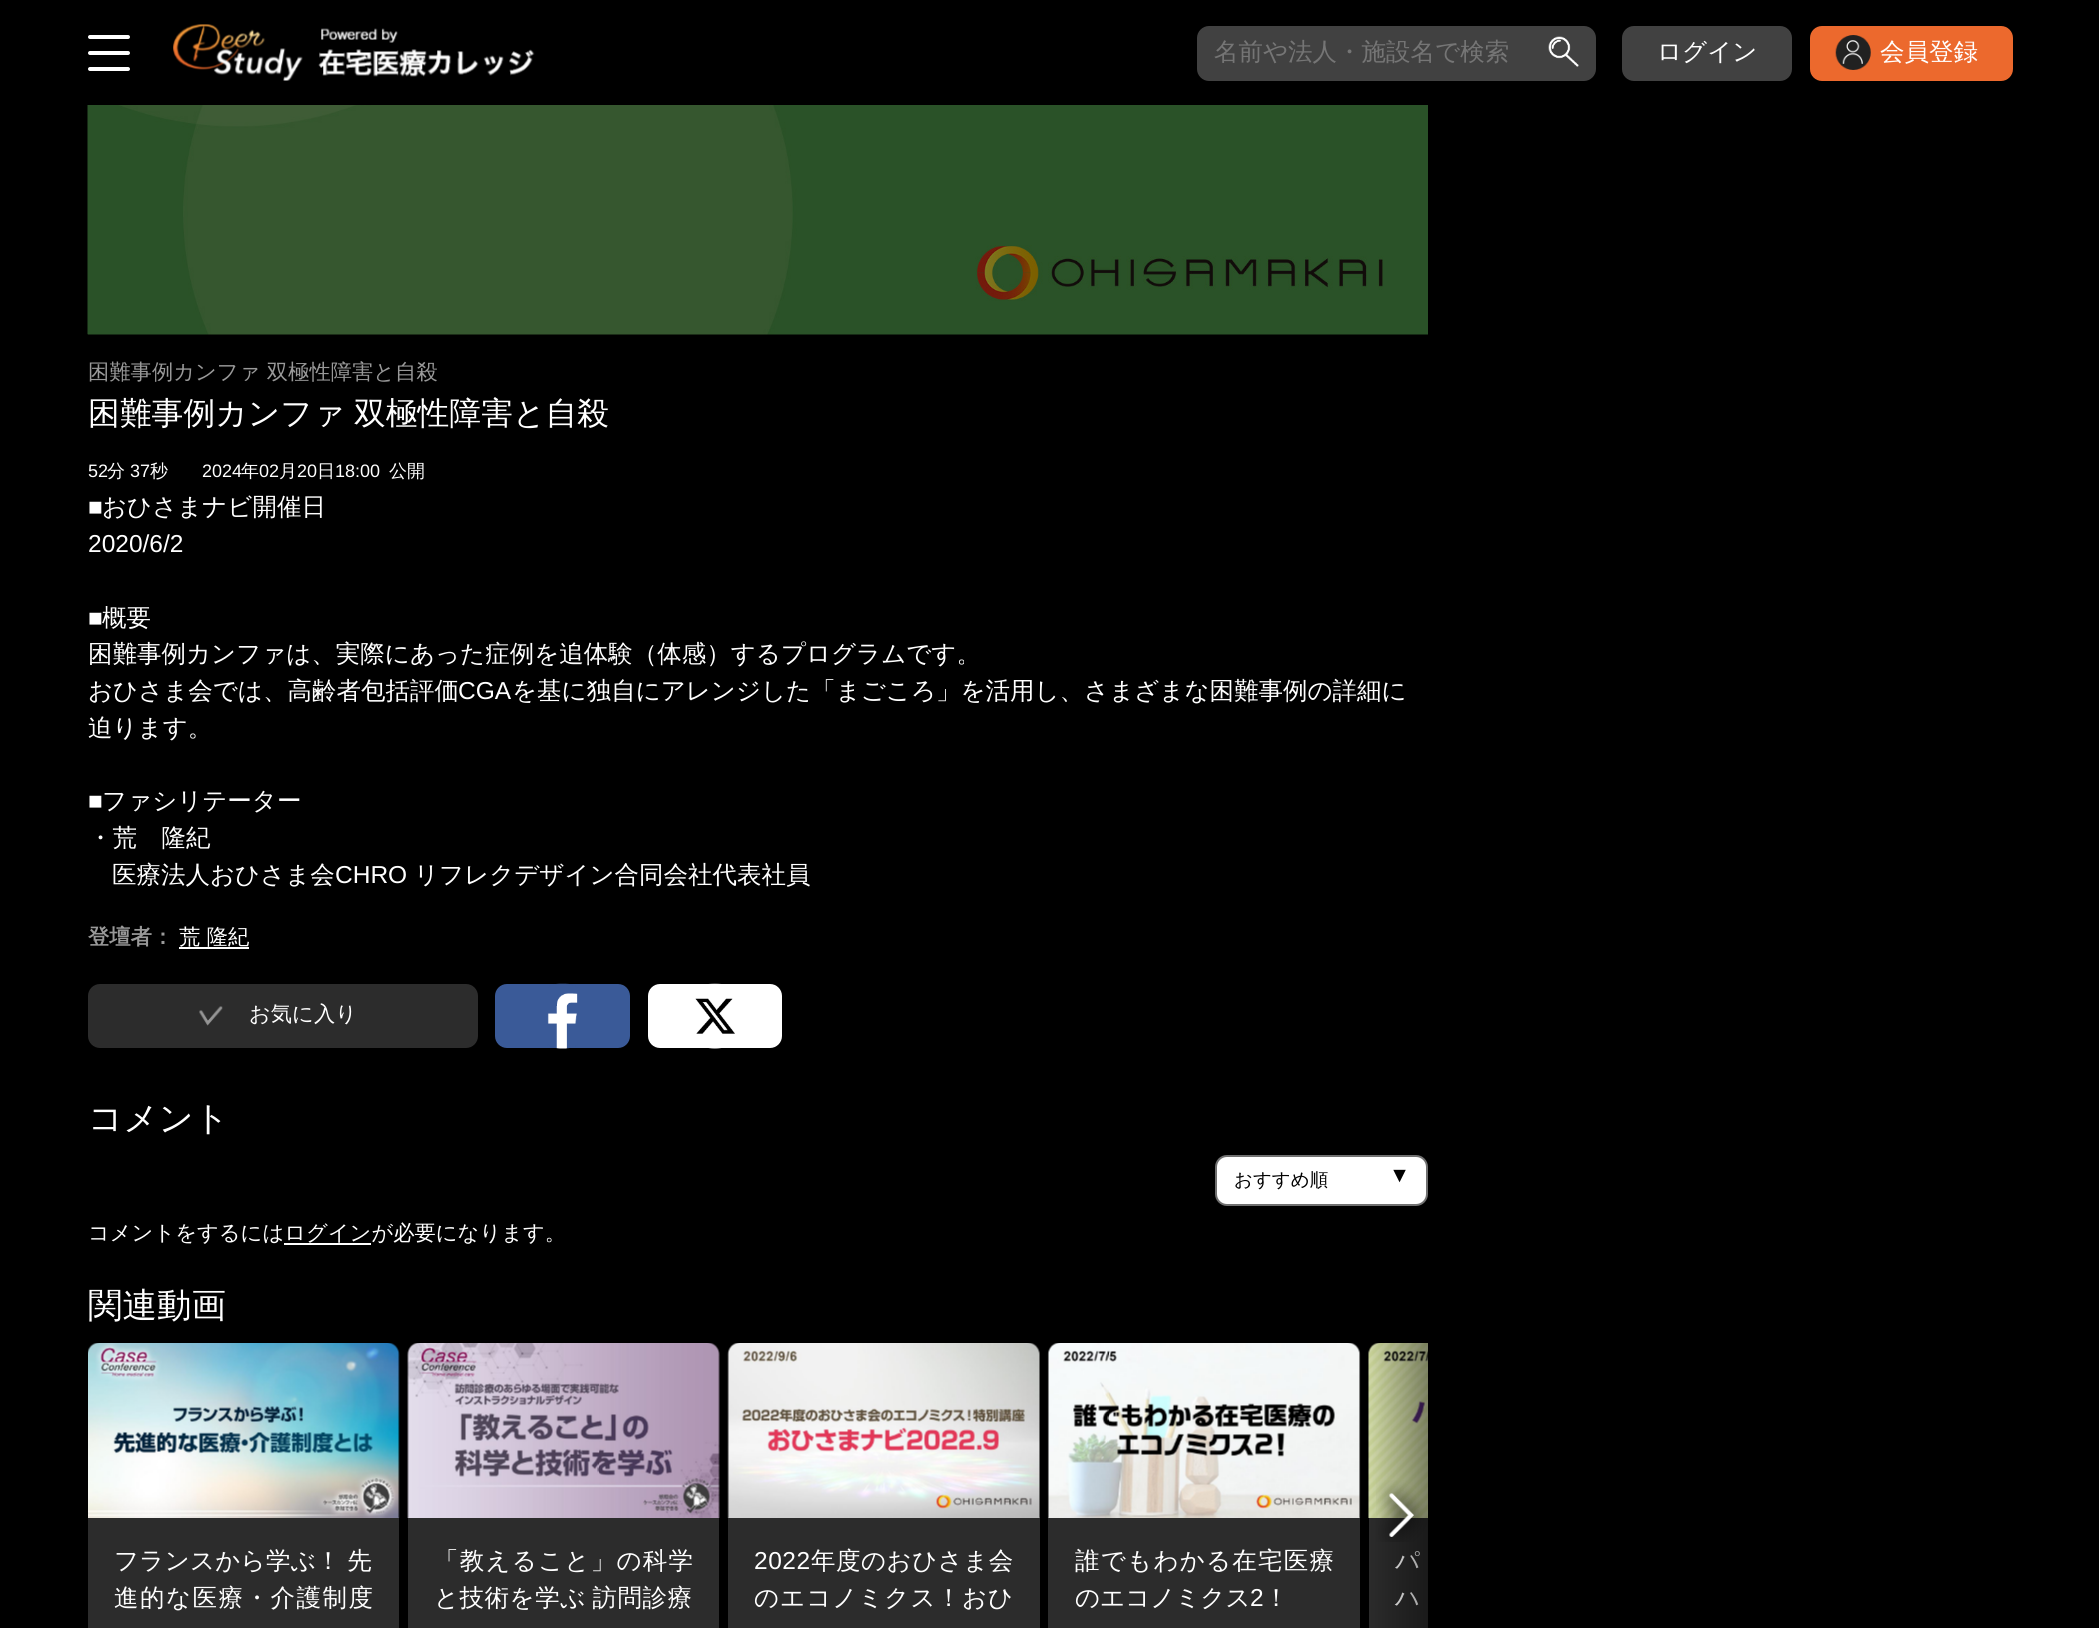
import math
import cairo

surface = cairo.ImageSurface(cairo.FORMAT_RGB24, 2099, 1628)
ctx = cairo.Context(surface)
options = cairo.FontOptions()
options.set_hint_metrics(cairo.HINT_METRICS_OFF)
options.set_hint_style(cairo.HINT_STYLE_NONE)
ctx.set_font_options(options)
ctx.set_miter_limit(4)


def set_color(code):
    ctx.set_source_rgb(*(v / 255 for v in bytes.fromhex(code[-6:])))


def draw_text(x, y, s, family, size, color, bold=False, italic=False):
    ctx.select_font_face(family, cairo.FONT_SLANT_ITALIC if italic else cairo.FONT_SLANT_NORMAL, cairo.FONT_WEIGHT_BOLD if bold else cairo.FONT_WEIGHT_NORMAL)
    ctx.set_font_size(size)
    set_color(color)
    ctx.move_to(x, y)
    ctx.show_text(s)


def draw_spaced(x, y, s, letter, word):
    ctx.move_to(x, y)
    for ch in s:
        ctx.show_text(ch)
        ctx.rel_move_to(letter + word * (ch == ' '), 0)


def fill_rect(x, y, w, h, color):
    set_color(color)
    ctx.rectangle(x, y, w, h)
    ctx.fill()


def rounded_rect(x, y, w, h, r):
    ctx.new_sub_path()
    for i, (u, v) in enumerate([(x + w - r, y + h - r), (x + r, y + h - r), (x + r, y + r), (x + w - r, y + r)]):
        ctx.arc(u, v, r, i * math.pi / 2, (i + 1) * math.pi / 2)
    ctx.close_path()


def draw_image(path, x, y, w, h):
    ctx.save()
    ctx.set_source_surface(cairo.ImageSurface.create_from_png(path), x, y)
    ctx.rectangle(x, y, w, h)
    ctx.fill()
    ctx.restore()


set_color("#000000")
ctx.paint()
set_color("#ffffff")
rounded_rect(88, 35, 42, 4, 2)
ctx.fill()
rounded_rect(88, 51, 42, 4, 2)
ctx.fill()
rounded_rect(88, 67, 42, 4, 2)
ctx.fill()
draw_image("assets/img1.png", 173, 24, 130, 57)
draw_image("assets/img2.png", 318, 28, 217, 49)
set_color("#414141")
ctx.new_path()
ctx.move_to(1209, 26)
ctx.line_to(1549, 26)
ctx.line_to(1549, 81)
ctx.line_to(1209, 81)
ctx.curve_to(1202.5, 81, 1197, 75.5, 1197, 69)
ctx.line_to(1197, 38)
ctx.curve_to(1197, 31.5, 1202.5, 26, 1209, 26)
ctx.close_path()
ctx.fill()
draw_text(1214, 60, "名前や法人・施設名で検索", "WenQuanYi Zen Hei Medium", 24.5, "#757575")
set_color("#414141")
ctx.new_path()
ctx.move_to(1549, 26)
ctx.line_to(1584, 26)
ctx.curve_to(1590.5, 26, 1596, 31.5, 1596, 38)
ctx.line_to(1596, 69)
ctx.curve_to(1596, 75.5, 1590.5, 81, 1584, 81)
ctx.line_to(1549, 81)
ctx.close_path()
ctx.fill()
draw_image("assets/img3.png", 1548, 36, 31, 31)
rounded_rect(1622, 26, 170, 55, 12)
ctx.fill()
draw_text(1657, 60, "ログイン", "WenQuanYi Zen Hei Medium", 24.5, "#ffffff")
set_color("#ec692d")
rounded_rect(1810, 26, 203, 55, 12)
ctx.fill()
draw_image("assets/img4.png", 1835, 35, 36, 35)
draw_text(1880, 60, "会員登録", "WenQuanYi Zen Hei Medium", 24.5, "#ffffff")
draw_image("assets/img5.png", 87, 105, 1341, 230)
draw_text(88, 379, "困難事例カンファ 双極性障害と自殺", "WenQuanYi Zen Hei Medium", 21.3, "#999999")
ctx.set_font_size(31.8)
set_color("#ffffff")
draw_spaced(88, 424, "困難事例カンファ 双極性障害と自殺", 0, -1)
draw_text(88, 477, "52", "Liberation Sans", 18, "#ffffff")
draw_text(107, 477, "分", "WenQuanYi Zen Hei Medium", 18, "#ffffff")
draw_text(130, 477, "37", "Liberation Sans", 18, "#ffffff")
draw_text(150, 477, "秒", "WenQuanYi Zen Hei Medium", 18, "#ffffff")
draw_text(202, 477, "2024", "Liberation Sans", 18, "#ffffff")
draw_text(241, 477, "年", "WenQuanYi Zen Hei Medium", 18, "#ffffff")
draw_text(259, 477, "02", "Liberation Sans", 18, "#ffffff")
draw_text(279, 477, "月", "WenQuanYi Zen Hei Medium", 18, "#ffffff")
draw_text(297, 477, "20", "Liberation Sans", 18, "#ffffff")
draw_text(317, 477, "日", "WenQuanYi Zen Hei Medium", 18, "#ffffff")
draw_text(335, 477, "18:00", "Liberation Sans", 18, "#ffffff")
draw_text(389, 477, "公開", "WenQuanYi Zen Hei Medium", 18, "#ffffff")
draw_text(88, 515, "■", "Liberation Sans", 24.5, "#ffffff")
draw_text(102, 515, "おひさまナビ開催日", "WenQuanYi Zen Hei Medium", 24.5, "#ffffff")
draw_text(88, 552, "2020/6/2", "Liberation Sans", 24.5, "#ffffff")
draw_text(88, 626, "■", "Liberation Sans", 24.5, "#ffffff")
draw_text(102, 626, "概要", "WenQuanYi Zen Hei Medium", 24.5, "#ffffff")
draw_text(88, 662, "困難事例カンファは、実際にあった症例を追体験（体感）するプログラムです。", "WenQuanYi Zen Hei Medium", 24.5, "#ffffff")
draw_text(88, 699, "おひさま会では、高齢者包括評価", "WenQuanYi Zen Hei Medium", 24.5, "#ffffff")
draw_text(458, 699, "CGA", "Liberation Sans", 24.5, "#ffffff")
draw_text(512, 699, "を基に独自にアレンジした「まごころ」を活用し、さまざまな困難事例の詳細に", "WenQuanYi Zen Hei Medium", 24.5, "#ffffff")
draw_text(88, 736, "迫ります。", "WenQuanYi Zen Hei Medium", 24.5, "#ffffff")
draw_text(88, 809, "■", "Liberation Sans", 24.5, "#ffffff")
draw_text(102, 809, "ファシリテーター", "WenQuanYi Zen Hei Medium", 24.5, "#ffffff")
draw_text(88, 846, "・荒　隆紀", "WenQuanYi Zen Hei Medium", 24.5, "#ffffff")
draw_text(112, 883, "医療法人おひさま会", "WenQuanYi Zen Hei Medium", 24.5, "#ffffff")
draw_text(335, 883, "CHRO", "Liberation Sans", 24.5, "#ffffff")
draw_text(414, 883, "リフレクデザイン合同会社代表社員", "WenQuanYi Zen Hei Medium", 24.5, "#ffffff")
draw_text(88, 944, "登壇者：", "WenQuanYi Zen Hei", 21.3, "#999999", bold=True)
draw_text(179, 944, "荒 隆紀", "WenQuanYi Zen Hei Medium", 21.3, "#ffffff")
fill_rect(179, 947, 70, 2, "#ffffff")
set_color("#2c2c2c")
rounded_rect(88, 984, 390, 64, 12)
ctx.fill()
draw_image("assets/img6.png", 199, 1006, 24, 20)
draw_text(249, 1021, "お気に入り", "WenQuanYi Zen Hei Medium", 21.3, "#ffffff")
set_color("#3a5a98")
rounded_rect(495, 984, 135, 64, 12)
ctx.fill()
draw_image("assets/img7.png", 547, 983, 31, 66)
set_color("#ffffff")
rounded_rect(648, 984, 134, 64, 12)
ctx.fill()
draw_image("assets/img8.png", 695, 983, 40, 66)
draw_text(88, 1130, "コメント", "WenQuanYi Zen Hei Medium", 34.5, "#ffffff")
rounded_rect(1216, 1156, 211, 49, 11)
ctx.fill_preserve()
set_color("#707070")
ctx.stroke()
draw_text(1234, 1186, "おすすめ順", "WenQuanYi Zen Hei Medium", 18.5, "#000000")
draw_text(1389, 1182, "▼", "Liberation Sans", 21.3, "#000000")
draw_text(88, 1240, "コメントをするにはログインが必要になります。", "WenQuanYi Zen Hei Medium", 21.3, "#ffffff")
fill_rect(284, 1243, 87, 2, "#ffffff")
draw_text(88, 1317, "関連動画", "WenQuanYi Zen Hei Medium", 34.5, "#ffffff")
draw_image("assets/img14.png", 1368, 1343, 60, 175)
fill_rect(1369, 1518, 59, 110, "#2c2c2c")
ctx.set_font_size(24.5)
set_color("#ffffff")
draw_spaced(1395, 1569, "パ", 1, 0)
draw_text(1395, 1606, "ハ", "WenQuanYi Zen Hei Medium", 24.5, "#ffffff")
gradient = cairo.LinearGradient(1427, 1515, 1366, 1515)
gradient.add_color_stop_rgba(0, 0, 0, 0, 0.4)
gradient.add_color_stop_rgba(1, 0, 0, 0, 0)
ctx.set_source(gradient)
ctx.rectangle(1369, 1343, 59, 285)
ctx.fill()
draw_image("assets/img9.png", 1376, 1480, 51, 62)
fill_rect(88, 1517, 311, 111, "#2c2c2c")
draw_image("assets/img10.png", 88, 1343, 312, 175)
set_color("#ffffff")
draw_spaced(114, 1569, "フランスから学ぶ！ 先", 0.25, -1)
draw_spaced(114, 1606, "進的な医療・介護制度", 1.5, 0)
fill_rect(408, 1517, 311, 111, "#2c2c2c")
draw_image("assets/img11.png", 407, 1343, 313, 175)
set_color("#ffffff")
draw_spaced(434, 1569, "「教えること」の科学", 1.25, 0)
draw_spaced(434, 1606, "と技術を学ぶ 訪問診療", 0.5, -1)
fill_rect(728, 1517, 312, 111, "#2c2c2c")
draw_image("assets/img12.png", 727, 1343, 313, 175)
ctx.select_font_face("Liberation Sans")
set_color("#ffffff")
draw_spaced(754, 1569, "2022", 0.5, 0)
ctx.select_font_face("WenQuanYi Zen Hei Medium")
draw_spaced(811, 1569, "年度のおひさま会", 0.5, 0)
draw_spaced(754, 1606, "のエコノミクス！おひ", 1, 0)
fill_rect(1048, 1517, 312, 111, "#2c2c2c")
draw_image("assets/img13.png", 1047, 1343, 314, 175)
set_color("#ffffff")
draw_spaced(1075, 1569, "誰でもわかる在宅医療", 1.25, 0)
draw_text(1075, 1606, "のエコノミクス", "WenQuanYi Zen Hei Medium", 24.5, "#ffffff")
draw_text(1250, 1606, "2", "Liberation Sans", 24.5, "#ffffff")
draw_text(1264, 1606, "！", "WenQuanYi Zen Hei Medium", 24.5, "#ffffff")
surface.write_to_png("output.png")
